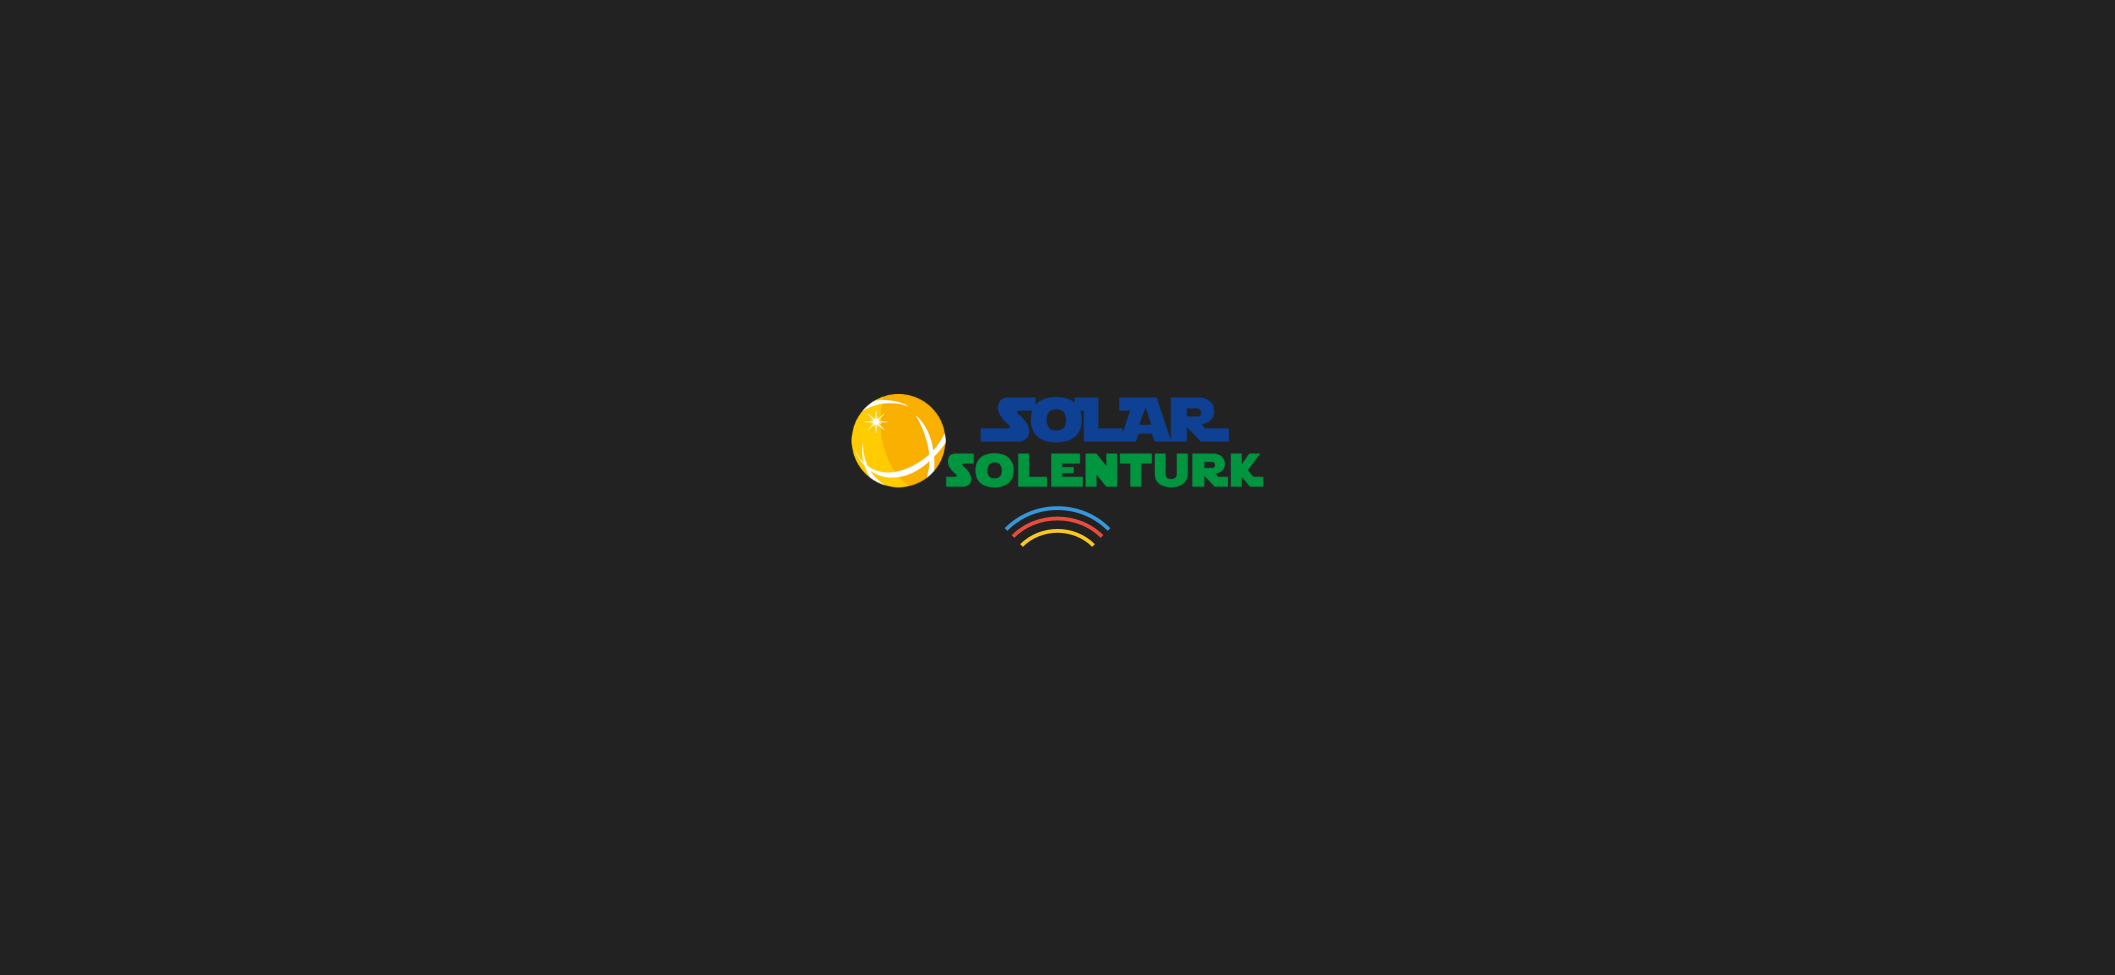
import math
import cairo

surface = cairo.ImageSurface(cairo.FORMAT_RGB24, 2115, 975)
ctx = cairo.Context(surface)
options = cairo.FontOptions()
options.set_hint_metrics(cairo.HINT_METRICS_OFF)
options.set_hint_style(cairo.HINT_STYLE_NONE)
ctx.set_font_options(options)
ctx.set_miter_limit(4)


def set_color(code):
    ctx.set_source_rgb(*(v / 255 for v in bytes.fromhex(code[-6:])))


def draw_image(path, x, y, w, h):
    ctx.save()
    ctx.set_source_surface(cairo.ImageSurface.create_from_png(path), x, y)
    ctx.rectangle(x, y, w, h)
    ctx.fill()
    ctx.restore()


set_color("#222222")
ctx.paint()
draw_image("assets/img1.png", 851, 394, 413, 94)
ctx.new_path()
ctx.move_to(1006, 529.5)
ctx.curve_to(1034, 501, 1081, 501, 1109, 529.5)
set_color("#3498db")
ctx.set_line_width(3.8)
ctx.stroke()
ctx.new_path()
ctx.move_to(1013, 536.5)
ctx.curve_to(1037, 512.5, 1078, 512.5, 1102, 536.5)
set_color("#e74c3c")
ctx.stroke()
ctx.new_path()
ctx.move_to(1021.5, 545.5)
ctx.curve_to(1041, 526, 1074, 526, 1093.5, 545.5)
set_color("#f9c922")
ctx.stroke()
surface.write_to_png("output.png")
